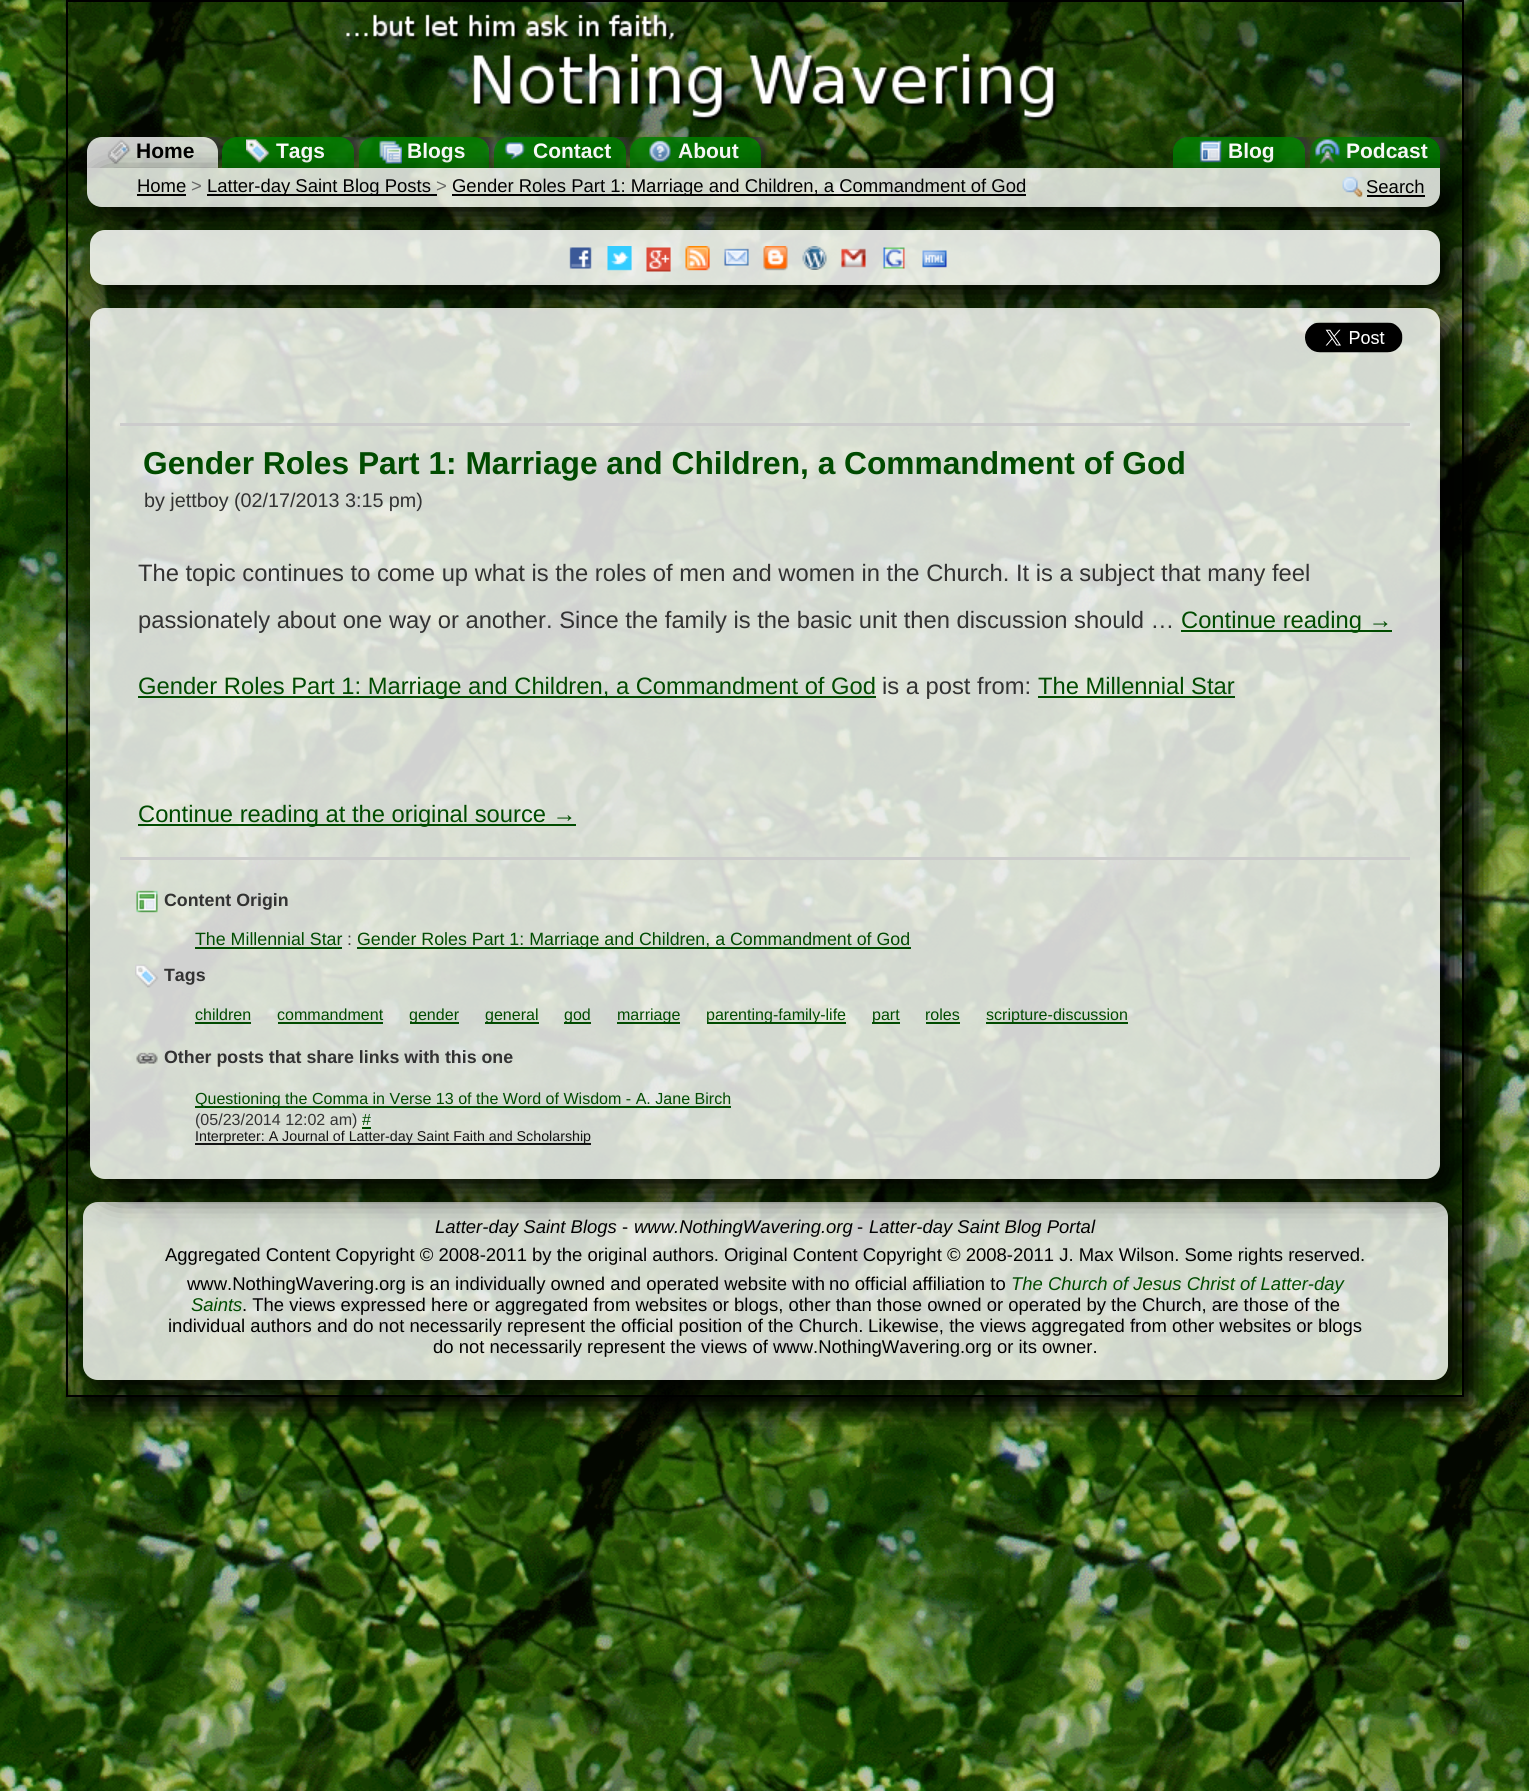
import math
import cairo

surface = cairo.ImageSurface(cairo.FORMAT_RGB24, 1529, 1791)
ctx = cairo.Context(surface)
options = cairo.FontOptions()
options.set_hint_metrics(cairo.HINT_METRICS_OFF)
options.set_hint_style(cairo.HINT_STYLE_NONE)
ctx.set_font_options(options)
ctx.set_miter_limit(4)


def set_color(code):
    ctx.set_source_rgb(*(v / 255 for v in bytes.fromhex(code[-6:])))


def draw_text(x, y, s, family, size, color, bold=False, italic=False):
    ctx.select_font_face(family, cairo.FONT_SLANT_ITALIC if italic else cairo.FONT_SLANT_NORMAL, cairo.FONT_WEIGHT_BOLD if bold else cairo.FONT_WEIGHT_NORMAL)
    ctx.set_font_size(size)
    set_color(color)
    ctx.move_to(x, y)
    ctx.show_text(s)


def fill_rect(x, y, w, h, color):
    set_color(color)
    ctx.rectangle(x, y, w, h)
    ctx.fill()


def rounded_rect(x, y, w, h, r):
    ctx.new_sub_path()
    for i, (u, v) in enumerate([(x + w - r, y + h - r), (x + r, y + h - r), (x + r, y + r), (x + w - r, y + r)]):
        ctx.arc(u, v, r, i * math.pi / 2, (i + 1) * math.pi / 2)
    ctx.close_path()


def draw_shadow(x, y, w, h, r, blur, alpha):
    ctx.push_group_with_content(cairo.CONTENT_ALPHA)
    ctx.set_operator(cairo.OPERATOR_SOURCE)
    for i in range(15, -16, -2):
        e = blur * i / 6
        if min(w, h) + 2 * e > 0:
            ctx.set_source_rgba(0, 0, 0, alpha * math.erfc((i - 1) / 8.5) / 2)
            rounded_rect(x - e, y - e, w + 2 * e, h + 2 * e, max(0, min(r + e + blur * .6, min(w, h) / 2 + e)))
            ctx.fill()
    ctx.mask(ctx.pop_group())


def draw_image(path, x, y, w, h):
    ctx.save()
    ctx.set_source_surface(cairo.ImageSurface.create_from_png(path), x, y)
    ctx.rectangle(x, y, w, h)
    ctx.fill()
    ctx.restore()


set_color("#ffffff")
ctx.paint()
draw_image("assets/img1.png", 0, 0, 1529, 1791)
ctx.save()
ctx.set_fill_rule(cairo.FILL_RULE_EVEN_ODD)
ctx.new_path()
ctx.move_to(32, 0)
ctx.line_to(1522, 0)
ctx.line_to(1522, 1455)
ctx.line_to(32, 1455)
ctx.close_path()
ctx.move_to(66, 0)
ctx.line_to(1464, 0)
ctx.line_to(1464, 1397)
ctx.line_to(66, 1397)
ctx.close_path()
ctx.clip()
set_color("#000000")
draw_shadow(78, 12, 1398, 1397, 0, 15, 1)
ctx.restore()
ctx.set_source_rgba(0, 0, 0, 0.25)
ctx.rectangle(67, 1, 1396, 1395)
ctx.fill_preserve()
set_color("#000000")
ctx.stroke()
draw_image("assets/img2.png", 346, 14, 712, 108)
ctx.save()
ctx.rectangle(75, 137, 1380, 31)
ctx.clip()
ctx.set_fill_rule(cairo.FILL_RULE_EVEN_ODD)
ctx.new_path()
ctx.move_to(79, 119)
ctx.line_to(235, 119)
ctx.line_to(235, 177)
ctx.line_to(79, 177)
ctx.close_path()
ctx.move_to(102, 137)
ctx.line_to(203, 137)
ctx.curve_to(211.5, 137, 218, 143.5, 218, 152)
ctx.line_to(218, 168)
ctx.line_to(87, 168)
ctx.line_to(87, 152)
ctx.curve_to(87, 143.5, 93.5, 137, 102, 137)
ctx.close_path()
ctx.clip()
set_color("#333333")
draw_shadow(92, 132, 130, 32, 15, 4, 1)
ctx.restore()
ctx.set_source_rgba(1, 1, 1, 0.8)
ctx.new_path()
ctx.move_to(102, 137)
ctx.line_to(203, 137)
ctx.curve_to(211.5, 137, 218, 143.5, 218, 152)
ctx.line_to(218, 168)
ctx.line_to(87, 168)
ctx.line_to(87, 152)
ctx.curve_to(87, 143.5, 93.5, 137, 102, 137)
ctx.close_path()
ctx.fill()
draw_image("assets/img3.png", 107, 139, 24, 25)
draw_text(136, 158, "Home", "Liberation Sans", 21, "#000000", bold=True)
ctx.save()
ctx.rectangle(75, 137, 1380, 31)
ctx.clip()
ctx.set_fill_rule(cairo.FILL_RULE_EVEN_ODD)
ctx.new_path()
ctx.move_to(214, 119)
ctx.line_to(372, 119)
ctx.line_to(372, 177)
ctx.line_to(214, 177)
ctx.close_path()
ctx.move_to(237, 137)
ctx.line_to(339, 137)
ctx.curve_to(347.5, 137, 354, 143.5, 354, 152)
ctx.line_to(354, 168)
ctx.line_to(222, 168)
ctx.line_to(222, 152)
ctx.curve_to(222, 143.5, 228.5, 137, 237, 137)
ctx.close_path()
ctx.clip()
set_color("#333333")
draw_shadow(227, 132, 132, 32, 15, 4, 1)
ctx.restore()
ctx.set_source_rgba(0, 0.494, 0, 0.85)
ctx.new_path()
ctx.move_to(237, 137)
ctx.line_to(339, 137)
ctx.curve_to(347.5, 137, 354, 143.5, 354, 152)
ctx.line_to(354, 168)
ctx.line_to(222, 168)
ctx.line_to(222, 152)
ctx.curve_to(222, 143.5, 228.5, 137, 237, 137)
ctx.close_path()
ctx.fill()
draw_image("assets/img4.png", 246, 139, 24, 25)
draw_text(276, 158, "Tags", "Liberation Sans", 21, "#ffffff", bold=True)
ctx.save()
ctx.rectangle(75, 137, 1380, 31)
ctx.clip()
ctx.set_fill_rule(cairo.FILL_RULE_EVEN_ODD)
ctx.new_path()
ctx.move_to(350, 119)
ctx.line_to(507, 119)
ctx.line_to(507, 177)
ctx.line_to(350, 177)
ctx.close_path()
ctx.move_to(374, 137)
ctx.line_to(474, 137)
ctx.curve_to(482.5, 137, 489, 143.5, 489, 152)
ctx.line_to(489, 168)
ctx.line_to(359, 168)
ctx.line_to(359, 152)
ctx.curve_to(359, 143.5, 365.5, 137, 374, 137)
ctx.close_path()
ctx.clip()
set_color("#333333")
draw_shadow(363, 132, 131, 32, 15, 4, 1)
ctx.restore()
ctx.set_source_rgba(0, 0.494, 0, 0.85)
ctx.new_path()
ctx.move_to(374, 137)
ctx.line_to(474, 137)
ctx.curve_to(482.5, 137, 489, 143.5, 489, 152)
ctx.line_to(489, 168)
ctx.line_to(359, 168)
ctx.line_to(359, 152)
ctx.curve_to(359, 143.5, 365.5, 137, 374, 137)
ctx.close_path()
ctx.fill()
draw_image("assets/img5.png", 379, 140, 23, 24)
draw_text(407, 158, "Blogs", "Liberation Sans", 21, "#ffffff", bold=True)
ctx.save()
ctx.rectangle(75, 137, 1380, 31)
ctx.clip()
ctx.set_fill_rule(cairo.FILL_RULE_EVEN_ODD)
ctx.new_path()
ctx.move_to(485, 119)
ctx.line_to(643, 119)
ctx.line_to(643, 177)
ctx.line_to(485, 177)
ctx.close_path()
ctx.move_to(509, 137)
ctx.line_to(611, 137)
ctx.curve_to(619.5, 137, 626, 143.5, 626, 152)
ctx.line_to(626, 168)
ctx.line_to(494, 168)
ctx.line_to(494, 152)
ctx.curve_to(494, 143.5, 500.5, 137, 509, 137)
ctx.close_path()
ctx.clip()
set_color("#333333")
draw_shadow(498, 132, 132, 32, 15, 4, 1)
ctx.restore()
ctx.set_source_rgba(0, 0.494, 0, 0.85)
ctx.new_path()
ctx.move_to(509, 137)
ctx.line_to(611, 137)
ctx.curve_to(619.5, 137, 626, 143.5, 626, 152)
ctx.line_to(626, 168)
ctx.line_to(494, 168)
ctx.line_to(494, 152)
ctx.curve_to(494, 143.5, 500.5, 137, 509, 137)
ctx.close_path()
ctx.fill()
draw_image("assets/img6.png", 504, 142, 22, 18)
draw_text(533, 158, "Contact", "Liberation Sans", 21, "#ffffff", bold=True)
ctx.save()
ctx.rectangle(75, 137, 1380, 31)
ctx.clip()
ctx.set_fill_rule(cairo.FILL_RULE_EVEN_ODD)
ctx.new_path()
ctx.move_to(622, 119)
ctx.line_to(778, 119)
ctx.line_to(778, 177)
ctx.line_to(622, 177)
ctx.close_path()
ctx.move_to(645, 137)
ctx.line_to(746, 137)
ctx.curve_to(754.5, 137, 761, 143.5, 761, 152)
ctx.line_to(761, 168)
ctx.line_to(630, 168)
ctx.line_to(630, 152)
ctx.curve_to(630, 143.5, 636.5, 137, 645, 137)
ctx.close_path()
ctx.clip()
set_color("#333333")
draw_shadow(635, 132, 130, 32, 15, 4, 1)
ctx.restore()
ctx.set_source_rgba(0, 0.494, 0, 0.85)
ctx.new_path()
ctx.move_to(645, 137)
ctx.line_to(746, 137)
ctx.curve_to(754.5, 137, 761, 143.5, 761, 152)
ctx.line_to(761, 168)
ctx.line_to(630, 168)
ctx.line_to(630, 152)
ctx.curve_to(630, 143.5, 636.5, 137, 645, 137)
ctx.close_path()
ctx.fill()
draw_image("assets/img7.png", 649, 140, 22, 23)
draw_text(678, 158, "About", "Liberation Sans", 21, "#ffffff", bold=True)
ctx.save()
ctx.rectangle(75, 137, 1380, 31)
ctx.clip()
ctx.set_fill_rule(cairo.FILL_RULE_EVEN_ODD)
ctx.new_path()
ctx.move_to(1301, 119)
ctx.line_to(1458, 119)
ctx.line_to(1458, 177)
ctx.line_to(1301, 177)
ctx.close_path()
ctx.move_to(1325, 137)
ctx.line_to(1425, 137)
ctx.curve_to(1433.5, 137, 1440, 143.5, 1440, 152)
ctx.line_to(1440, 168)
ctx.line_to(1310, 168)
ctx.line_to(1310, 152)
ctx.curve_to(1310, 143.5, 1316.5, 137, 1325, 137)
ctx.close_path()
ctx.clip()
set_color("#333333")
draw_shadow(1314, 132, 131, 32, 15, 4, 1)
ctx.restore()
ctx.set_source_rgba(0, 0.494, 0, 0.85)
ctx.new_path()
ctx.move_to(1325, 137)
ctx.line_to(1425, 137)
ctx.curve_to(1433.5, 137, 1440, 143.5, 1440, 152)
ctx.line_to(1440, 168)
ctx.line_to(1310, 168)
ctx.line_to(1310, 152)
ctx.curve_to(1310, 143.5, 1316.5, 137, 1325, 137)
ctx.close_path()
ctx.fill()
draw_image("assets/img9.png", 1315, 139, 25, 25)
ctx.save()
ctx.rectangle(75, 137, 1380, 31)
ctx.clip()
ctx.set_fill_rule(cairo.FILL_RULE_EVEN_ODD)
ctx.new_path()
ctx.move_to(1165, 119)
ctx.line_to(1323, 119)
ctx.line_to(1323, 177)
ctx.line_to(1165, 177)
ctx.close_path()
ctx.move_to(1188, 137)
ctx.line_to(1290, 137)
ctx.curve_to(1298.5, 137, 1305, 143.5, 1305, 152)
ctx.line_to(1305, 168)
ctx.line_to(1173, 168)
ctx.line_to(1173, 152)
ctx.curve_to(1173, 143.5, 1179.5, 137, 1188, 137)
ctx.close_path()
ctx.clip()
set_color("#333333")
draw_shadow(1178, 132, 132, 32, 15, 4, 1)
ctx.restore()
ctx.new_path()
ctx.move_to(1188, 137)
ctx.line_to(1290, 137)
ctx.curve_to(1298.5, 137, 1305, 143.5, 1305, 152)
ctx.line_to(1305, 168)
ctx.line_to(1173, 168)
ctx.line_to(1173, 152)
ctx.curve_to(1173, 143.5, 1179.5, 137, 1188, 137)
ctx.close_path()
ctx.fill()
draw_image("assets/img8.png", 1199, 140, 23, 23)
draw_text(1228, 158, "Blog", "Liberation Sans", 21, "#ffffff", bold=True)
draw_text(1346, 158, "Podcast", "Liberation Sans", 21, "#ffffff", bold=True)
ctx.save()
ctx.set_fill_rule(cairo.FILL_RULE_EVEN_ODD)
ctx.new_path()
ctx.move_to(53, 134)
ctx.line_to(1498, 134)
ctx.line_to(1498, 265)
ctx.line_to(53, 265)
ctx.close_path()
ctx.move_to(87, 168)
ctx.line_to(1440, 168)
ctx.line_to(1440, 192)
ctx.curve_to(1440, 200.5, 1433.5, 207, 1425, 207)
ctx.line_to(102, 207)
ctx.curve_to(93.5, 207, 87, 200.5, 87, 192)
ctx.close_path()
ctx.clip()
set_color("#000000")
draw_shadow(99, 180, 1353, 39, 15, 15, 1)
ctx.restore()
ctx.set_source_rgba(1, 1, 1, 0.8)
ctx.new_path()
ctx.move_to(87, 168)
ctx.line_to(1440, 168)
ctx.line_to(1440, 192)
ctx.curve_to(1440, 200.5, 1433.5, 207, 1425, 207)
ctx.line_to(102, 207)
ctx.curve_to(93.5, 207, 87, 200.5, 87, 192)
ctx.close_path()
ctx.fill()
draw_text(137, 192, "Home", "Liberation Sans", 18.48, "#000000")
fill_rect(137, 194, 49, 2, "#000000")
draw_text(191, 192, ">", "Liberation Sans", 18.48, "#666666")
fill_rect(207, 194, 230, 2, "#000000")
draw_text(207, 192, "Latter-day Saint Blog Posts", "Liberation Sans", 18.48, "#000000")
draw_text(436, 192, ">", "Liberation Sans", 18.48, "#666666")
fill_rect(452, 194, 574, 2, "#000000")
draw_text(452, 192, "Gender Roles Part 1: Marriage and Children, a Commandment of God", "Liberation Sans", 18.48, "#000000")
draw_image("assets/img10.png", 1342, 176, 21, 22)
draw_text(1366, 193, "Search", "Liberation Sans", 18.48, "#000000")
fill_rect(1367, 195, 58, 2, "#000000")
ctx.save()
ctx.set_fill_rule(cairo.FILL_RULE_EVEN_ODD)
ctx.new_path()
ctx.move_to(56, 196)
ctx.line_to(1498, 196)
ctx.line_to(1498, 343)
ctx.line_to(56, 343)
ctx.close_path()
ctx.move_to(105, 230)
ctx.line_to(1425, 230)
ctx.curve_to(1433.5, 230, 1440, 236.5, 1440, 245)
ctx.line_to(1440, 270)
ctx.curve_to(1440, 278.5, 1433.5, 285, 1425, 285)
ctx.line_to(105, 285)
ctx.curve_to(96.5, 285, 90, 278.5, 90, 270)
ctx.line_to(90, 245)
ctx.curve_to(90, 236.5, 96.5, 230, 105, 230)
ctx.close_path()
ctx.clip()
set_color("#000000")
draw_shadow(102, 242, 1350, 55, 15, 15, 1)
ctx.restore()
ctx.set_source_rgba(1, 1, 1, 0.85)
rounded_rect(90, 230, 1350, 55, 15)
ctx.fill()
draw_image("assets/img11.png", 569, 247, 23, 22)
draw_image("assets/img12.png", 607, 246, 25, 25)
draw_image("assets/img13.png", 646, 247, 25, 25)
draw_image("assets/img14.png", 685, 246, 25, 25)
draw_image("assets/img15.png", 724, 248, 25, 18)
draw_image("assets/img16.png", 763, 246, 25, 25)
draw_image("assets/img17.png", 802, 246, 25, 24)
draw_image("assets/img18.png", 841, 248, 25, 20)
draw_image("assets/img19.png", 883, 247, 22, 22)
draw_image("assets/img20.png", 922, 250, 25, 18)
ctx.save()
ctx.set_fill_rule(cairo.FILL_RULE_EVEN_ODD)
ctx.new_path()
ctx.move_to(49, 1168)
ctx.line_to(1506, 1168)
ctx.line_to(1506, 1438)
ctx.line_to(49, 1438)
ctx.close_path()
ctx.move_to(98, 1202)
ctx.line_to(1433, 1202)
ctx.curve_to(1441.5, 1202, 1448, 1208.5, 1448, 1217)
ctx.line_to(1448, 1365)
ctx.curve_to(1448, 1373.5, 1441.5, 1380, 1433, 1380)
ctx.line_to(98, 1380)
ctx.curve_to(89.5, 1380, 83, 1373.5, 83, 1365)
ctx.line_to(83, 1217)
ctx.curve_to(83, 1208.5, 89.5, 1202, 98, 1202)
ctx.close_path()
ctx.clip()
set_color("#000000")
draw_shadow(95, 1214, 1365, 178, 15, 15, 1)
ctx.restore()
ctx.set_source_rgba(1, 1, 1, 0.8)
rounded_rect(83, 1202, 1365, 178, 15)
ctx.fill()
ctx.save()
ctx.set_fill_rule(cairo.FILL_RULE_EVEN_ODD)
ctx.new_path()
ctx.move_to(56, 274)
ctx.line_to(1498, 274)
ctx.line_to(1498, 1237)
ctx.line_to(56, 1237)
ctx.close_path()
ctx.move_to(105, 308)
ctx.line_to(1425, 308)
ctx.curve_to(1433.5, 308, 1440, 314.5, 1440, 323)
ctx.line_to(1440, 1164)
ctx.curve_to(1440, 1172.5, 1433.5, 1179, 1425, 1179)
ctx.line_to(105, 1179)
ctx.curve_to(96.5, 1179, 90, 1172.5, 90, 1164)
ctx.line_to(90, 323)
ctx.curve_to(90, 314.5, 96.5, 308, 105, 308)
ctx.close_path()
ctx.clip()
set_color("#000000")
draw_shadow(102, 320, 1350, 871, 15, 15, 1)
ctx.restore()
ctx.set_source_rgba(1, 1, 1, 0.82)
rounded_rect(90, 308, 1350, 871, 15)
ctx.fill()
fill_rect(120, 423, 1290, 3, "#cccccc")
draw_image("assets/img21.png", 1305, 322, 98, 31)
draw_text(143, 474, "Gender Roles Part 1: Marriage and Children, a Commandment of God", "Liberation Sans", 31.7, "#004b00", bold=True)
draw_text(144, 507, "by jettboy (02/17/2013 3:15 pm)", "Liberation Sans", 19.75, "#323232")
draw_text(138, 581, "The topic continues to come up what is the roles of men and women in the Church. It is a subject that many feel", "Liberation Sans", 23.75, "#323232")
draw_text(138, 628, "passionately about one way or another. Since the family is the basic unit then discussion should …", "Liberation Sans", 23.75, "#323232")
fill_rect(1181, 630, 211, 2, "#004b00")
draw_text(1181, 628, "Continue reading →", "Liberation Sans", 23.75, "#004b00")
fill_rect(138, 696, 738, 2, "#004b00")
draw_text(138, 694, "Gender Roles Part 1: Marriage and Children, a Commandment of God", "Liberation Sans", 23.75, "#004b00")
draw_text(882, 694, "is a post from:", "Liberation Sans", 23.75, "#323232")
draw_text(1038, 694, "The Millennial Star", "Liberation Sans", 23.75, "#004b00")
fill_rect(1038, 696, 197, 2, "#004b00")
fill_rect(138, 824, 438, 2, "#004b00")
draw_text(138, 822, "Continue reading at the original source →", "Liberation Sans", 23.75, "#004b00")
fill_rect(120, 857, 1290, 3, "#cccccc")
draw_image("assets/img22.png", 136, 890, 22, 23)
draw_text(164, 906, "Content Origin", "Liberation Sans", 17.8, "#323232", bold=True)
draw_text(195, 945, "The Millennial Star", "Liberation Sans", 17.8, "#004b00")
fill_rect(195, 947, 147, 2, "#004b00")
draw_text(347, 945, ":", "Liberation Sans", 17.8, "#323232")
fill_rect(357, 947, 554, 2, "#004b00")
draw_text(357, 945, "Gender Roles Part 1: Marriage and Children, a Commandment of God", "Liberation Sans", 17.8, "#004b00")
draw_image("assets/img23.png", 135, 964, 24, 24)
draw_text(164, 981, "Tags", "Liberation Sans", 17.8, "#323232", bold=True)
draw_text(195, 1020, "children", "Liberation Sans", 16.05, "#004b00")
fill_rect(195, 1022, 56, 2, "#004b00")
draw_text(277, 1020, "commandment", "Liberation Sans", 16.05, "#004b00")
fill_rect(278, 1022, 105, 2, "#004b00")
fill_rect(410, 1022, 49, 2, "#004b00")
draw_text(409, 1020, "gender", "Liberation Sans", 16.05, "#004b00")
fill_rect(485, 1022, 54, 2, "#004b00")
draw_text(485, 1020, "general", "Liberation Sans", 16.05, "#004b00")
fill_rect(564, 1022, 27, 2, "#004b00")
draw_text(564, 1020, "god", "Liberation Sans", 16.05, "#004b00")
fill_rect(617, 1022, 63, 2, "#004b00")
draw_text(617, 1020, "marriage", "Liberation Sans", 16.05, "#004b00")
fill_rect(707, 1022, 139, 2, "#004b00")
draw_text(706, 1020, "parenting-family-life", "Liberation Sans", 16.05, "#004b00")
fill_rect(872, 1022, 28, 2, "#004b00")
draw_text(872, 1020, "part", "Liberation Sans", 16.05, "#004b00")
draw_text(925, 1020, "roles", "Liberation Sans", 16.05, "#004b00")
fill_rect(926, 1022, 34, 2, "#004b00")
fill_rect(986, 1022, 142, 2, "#004b00")
draw_text(986, 1020, "scripture-discussion", "Liberation Sans", 16.05, "#004b00")
draw_image("assets/img24.png", 136, 1052, 22, 12)
draw_text(164, 1063, "Other posts that share links with this one", "Liberation Sans", 17.8, "#323232", bold=True)
fill_rect(195, 1106, 536, 2, "#004b00")
draw_text(195, 1104, "Questioning the Comma in Verse 13 of the Word of Wisdom - A. Jane Birch", "Liberation Sans", 16.05, "#004b00")
draw_text(195, 1125, "(05/23/2014 12:02 am)", "Liberation Sans", 16.05, "#323232")
draw_text(362, 1125, "#", "Liberation Sans", 16.05, "#004b00")
fill_rect(362, 1127, 9, 2, "#004b00")
fill_rect(195, 1143, 396, 2, "#141414")
draw_text(195, 1141, "Interpreter: A Journal of Latter-day Saint Faith and Scholarship", "Liberation Sans", 14.25, "#141414")
draw_text(435, 1233, "Latter-day Saint Blogs", "Liberation Sans", 18.48, "#000000", italic=True)
draw_text(622, 1233, "-", "Liberation Sans", 18.48, "#000000")
draw_text(634, 1233, "www.NothingWavering.org", "Liberation Sans", 18.48, "#000000", italic=True)
draw_text(857, 1233, "-", "Liberation Sans", 18.48, "#000000")
draw_text(869, 1233, "Latter-day Saint Blog Portal", "Liberation Sans", 18.48, "#000000", italic=True)
draw_text(165, 1261, "Aggregated Content Copyright © 2008-2011 by the original authors.", "Liberation Sans", 18.48, "#000000")
draw_text(724, 1261, "Original Content Copyright © 2008-2011 J. Max Wilson. Some rights reserved.", "Liberation Sans", 18.48, "#000000")
draw_text(187, 1290, "www.NothingWavering.org is an individually owned and operated website with", "Liberation Sans", 18.48, "#000000")
draw_text(829, 1290, "no official affiliation to", "Liberation Sans", 18.48, "#000000")
draw_text(1011, 1290, "The Church of Jesus Christ of Latter-day", "Liberation Sans", 18.48, "#004b00", italic=True)
draw_text(191, 1311, "Saints", "Liberation Sans", 18.48, "#004b00", italic=True)
draw_text(242, 1311, ". The views expressed here or aggregated from websites or blogs, other than those owned or operated by the Church, are those of the", "Liberation Sans", 18.48, "#000000")
draw_text(168, 1332, "individual authors and do not necessarily represent the official position of the Church.", "Liberation Sans", 18.48, "#000000")
draw_text(868, 1332, "Likewise, the views aggregated from other websites or blogs", "Liberation Sans", 18.48, "#000000")
draw_text(433, 1353, "do not necessarily represent the views of www.NothingWavering.org or its owner.", "Liberation Sans", 18.48, "#000000")
surface.write_to_png("output.png")
